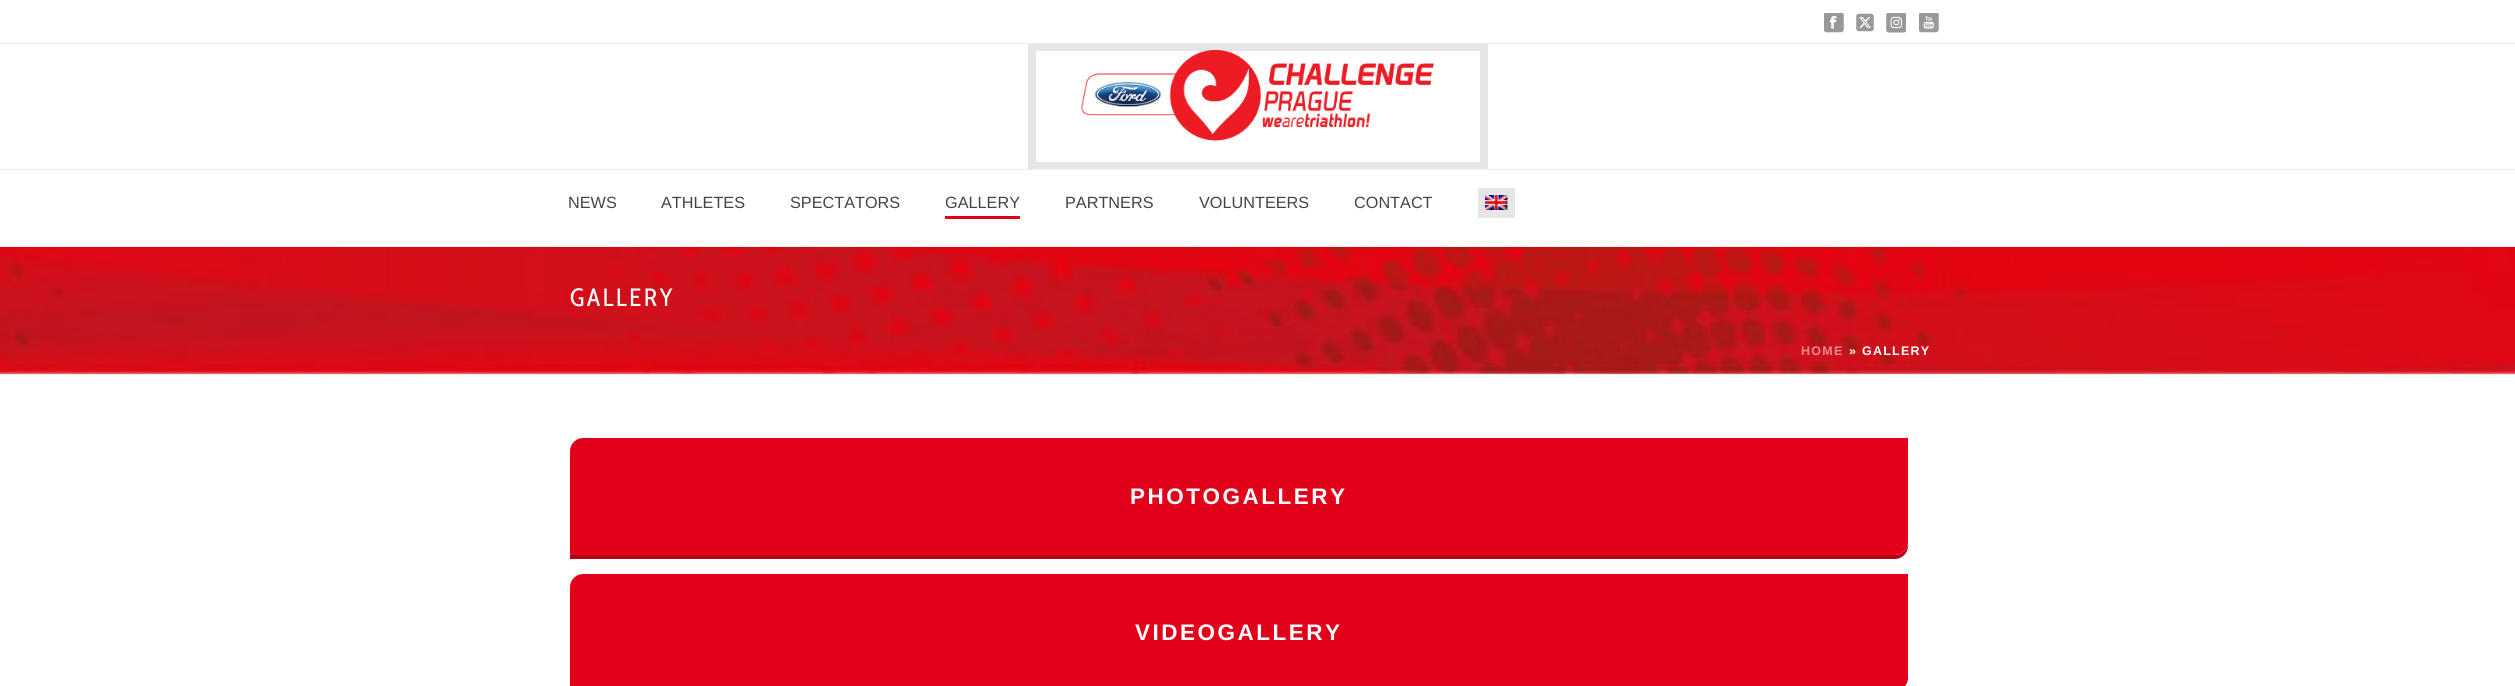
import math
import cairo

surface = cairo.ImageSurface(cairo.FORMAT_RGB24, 2515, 686)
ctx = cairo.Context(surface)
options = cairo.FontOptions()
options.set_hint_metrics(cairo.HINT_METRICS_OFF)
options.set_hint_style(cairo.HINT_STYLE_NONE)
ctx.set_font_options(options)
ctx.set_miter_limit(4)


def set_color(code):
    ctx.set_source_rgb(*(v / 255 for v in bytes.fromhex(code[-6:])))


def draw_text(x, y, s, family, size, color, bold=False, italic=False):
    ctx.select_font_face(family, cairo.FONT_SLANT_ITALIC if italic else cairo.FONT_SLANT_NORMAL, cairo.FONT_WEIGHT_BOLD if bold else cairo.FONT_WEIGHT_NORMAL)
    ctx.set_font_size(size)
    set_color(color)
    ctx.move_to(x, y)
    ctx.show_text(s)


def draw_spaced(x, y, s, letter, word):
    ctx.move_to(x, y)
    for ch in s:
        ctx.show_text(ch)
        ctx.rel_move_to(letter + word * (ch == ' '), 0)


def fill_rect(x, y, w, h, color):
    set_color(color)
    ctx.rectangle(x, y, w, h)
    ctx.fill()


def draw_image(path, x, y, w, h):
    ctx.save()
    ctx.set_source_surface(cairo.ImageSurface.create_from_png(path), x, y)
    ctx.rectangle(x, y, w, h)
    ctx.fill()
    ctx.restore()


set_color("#ffffff")
ctx.paint()
draw_image("assets/img1.png", 0, 247, 2515, 127)
fill_rect(0, 374, 2515, 1, "#ededed")
ctx.rectangle(1032, 47, 452, 119)
ctx.set_source_rgba(0, 0, 0, 0.1)
ctx.set_line_width(8)
ctx.stroke()
fill_rect(0, 43, 2515, 1, "#efefef")
draw_image("assets/img2.png", 1824, 13, 20, 20)
draw_image("assets/img3.png", 1856, 13, 18, 19)
draw_image("assets/img4.png", 1886, 13, 20, 20)
draw_image("assets/img5.png", 1919, 13, 20, 20)
fill_rect(0, 246, 2515, 1, "#ededed")
draw_image("assets/img6.png", 1081, 50, 353, 91)
fill_rect(0, 169, 2515, 1, "#ededed")
draw_text(568, 208, "NEWS", "Liberation Sans", 16.25, "#444444")
draw_text(661, 208, "ATHLETES", "Liberation Sans", 16.25, "#444444")
draw_text(790, 208, "SPECTATORS", "Liberation Sans", 16.25, "#444444")
draw_text(945, 208, "GALLERY", "Liberation Sans", 16.25, "#444444")
fill_rect(945, 216, 75, 3, "#e2001a")
draw_text(1065, 208, "PARTNERS", "Liberation Sans", 16.25, "#444444")
draw_text(1199, 208, "VOLUNTEERS", "Liberation Sans", 16.25, "#444444")
draw_text(1354, 208, "CONTACT", "Liberation Sans", 16.25, "#444444")
ctx.rectangle(1482, 192, 29, 22)
set_color("#e6e6e6")
ctx.stroke()
draw_image("assets/img7.png", 1485, 195, 23, 15)
ctx.select_font_face("Cabin Condensed")
ctx.set_font_size(25)
set_color("#ffffff")
draw_spaced(570, 306, "GALLERY", 2.5, 0)
ctx.select_font_face("Liberation Sans", cairo.FONT_SLANT_NORMAL, cairo.FONT_WEIGHT_BOLD)
ctx.set_font_size(12.5)
set_color("#e6888e")
draw_spaced(1801, 355, "HOME", 1.25, 0)
set_color("#ffffff")
draw_spaced(1849, 355, "» GALLERY", 1.25, 0)
set_color("#b50015")
ctx.new_path()
ctx.move_to(570, 555)
ctx.line_to(570, 559)
ctx.line_to(1895, 559)
ctx.curve_to(1902, 559, 1908, 553, 1908, 546)
ctx.line_to(1908, 441)
ctx.line_to(1908, 542)
ctx.curve_to(1908, 549, 1902, 555, 1895, 555)
ctx.close_path()
ctx.fill()
set_color("#e2001a")
ctx.new_path()
ctx.move_to(583, 438)
ctx.line_to(1908, 438)
ctx.line_to(1908, 542)
ctx.curve_to(1908, 549, 1902, 555, 1895, 555)
ctx.line_to(570, 555)
ctx.line_to(570, 451)
ctx.curve_to(570, 444, 576, 438, 583, 438)
ctx.close_path()
ctx.fill()
ctx.set_font_size(22.5)
set_color("#ffffff")
draw_spaced(1130, 504, "PHOTOGALLERY", 2.5, 0)
set_color("#e2001a")
ctx.new_path()
ctx.move_to(583, 574)
ctx.line_to(1908, 574)
ctx.line_to(1908, 678)
ctx.curve_to(1908, 685, 1902, 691, 1895, 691)
ctx.line_to(570, 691)
ctx.line_to(570, 587)
ctx.curve_to(570, 580, 576, 574, 583, 574)
ctx.close_path()
ctx.fill()
set_color("#ffffff")
draw_spaced(1135, 640, "VIDEOGALLERY", 2.5, 0)
surface.write_to_png("output.png")
